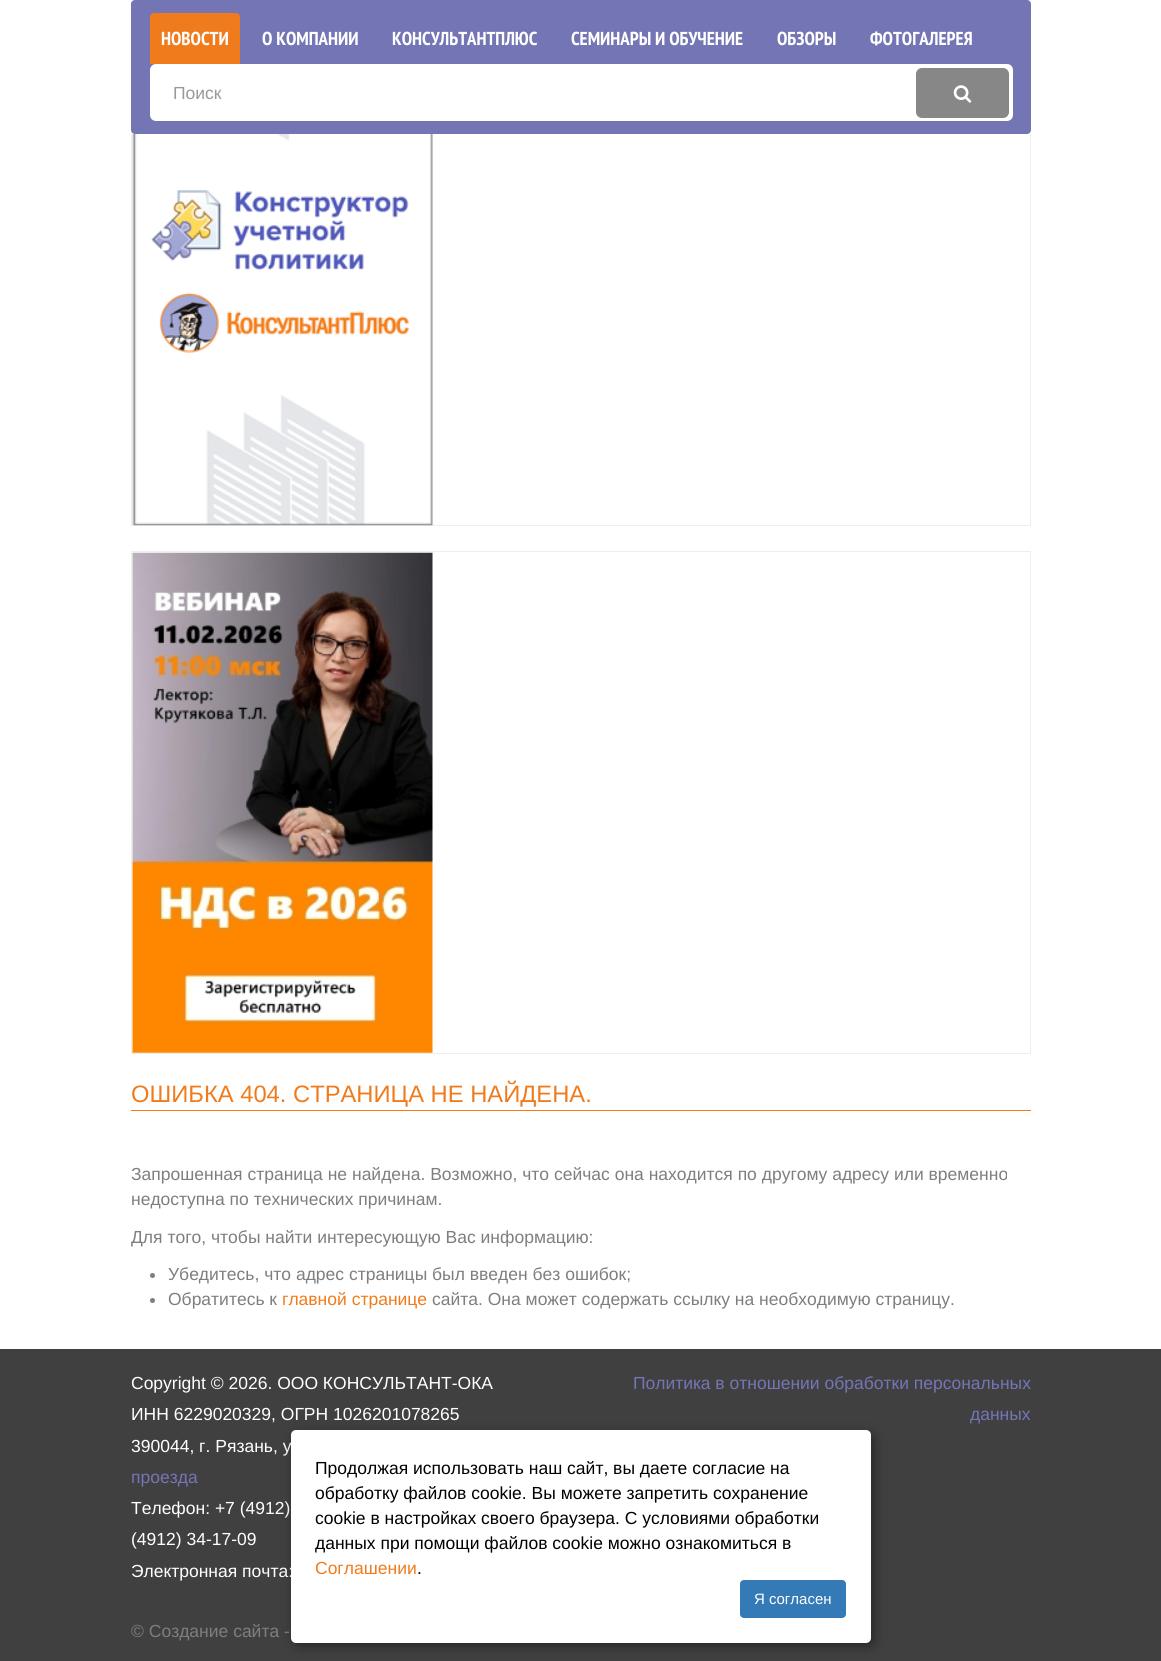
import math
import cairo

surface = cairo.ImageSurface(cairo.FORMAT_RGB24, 1161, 1661)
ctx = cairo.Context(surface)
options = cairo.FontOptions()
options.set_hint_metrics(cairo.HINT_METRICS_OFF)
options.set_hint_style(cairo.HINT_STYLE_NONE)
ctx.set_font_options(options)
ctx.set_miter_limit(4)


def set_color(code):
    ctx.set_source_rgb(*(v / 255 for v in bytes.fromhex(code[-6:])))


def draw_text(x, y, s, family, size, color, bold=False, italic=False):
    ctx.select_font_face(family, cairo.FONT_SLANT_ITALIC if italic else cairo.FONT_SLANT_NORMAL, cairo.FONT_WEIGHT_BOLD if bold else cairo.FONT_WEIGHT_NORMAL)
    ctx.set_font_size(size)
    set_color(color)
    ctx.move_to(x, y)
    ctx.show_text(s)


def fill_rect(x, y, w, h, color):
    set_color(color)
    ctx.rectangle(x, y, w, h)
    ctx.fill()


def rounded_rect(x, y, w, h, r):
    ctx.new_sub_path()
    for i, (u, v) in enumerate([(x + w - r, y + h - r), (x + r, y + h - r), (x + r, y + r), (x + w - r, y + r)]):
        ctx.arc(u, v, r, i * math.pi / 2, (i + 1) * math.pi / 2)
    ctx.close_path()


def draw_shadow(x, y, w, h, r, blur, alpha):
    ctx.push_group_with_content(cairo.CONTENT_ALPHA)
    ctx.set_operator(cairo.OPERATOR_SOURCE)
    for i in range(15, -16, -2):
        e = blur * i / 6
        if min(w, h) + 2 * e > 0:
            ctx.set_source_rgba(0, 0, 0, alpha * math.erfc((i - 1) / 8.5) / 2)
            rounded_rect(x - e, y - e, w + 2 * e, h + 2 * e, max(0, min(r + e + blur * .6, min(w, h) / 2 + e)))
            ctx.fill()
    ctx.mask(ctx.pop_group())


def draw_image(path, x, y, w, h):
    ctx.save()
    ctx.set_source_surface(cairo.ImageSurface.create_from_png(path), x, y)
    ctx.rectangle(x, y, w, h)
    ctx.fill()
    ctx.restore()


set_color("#ffffff")
ctx.paint()
ctx.rectangle(131.5, 24.5, 899, 501)
set_color("#eeeeee")
ctx.set_line_width(1)
ctx.stroke()
fill_rect(131, 24, 900, 110, "#ffffff")
set_color("#7475b5")
rounded_rect(131, 0, 900, 134, 4)
ctx.fill()
set_color("#f07b1d")
ctx.new_path()
ctx.move_to(154, 13)
ctx.line_to(236, 13)
ctx.curve_to(238, 13, 240, 15, 240, 17)
ctx.line_to(240, 64)
ctx.line_to(150, 64)
ctx.line_to(150, 17)
ctx.curve_to(150, 15, 152, 13, 154, 13)
ctx.close_path()
ctx.fill()
draw_text(161, 45, "НОВОСТИ", "PT Sans Narrow", 18.75, "#ffffff", bold=True)
draw_text(262, 45, "О КОМПАНИИ", "PT Sans Narrow", 18.75, "#ffffff", bold=True)
draw_text(392, 45, "КОНСУЛЬТАНТПЛЮС", "PT Sans Narrow", 18.75, "#ffffff", bold=True)
draw_text(571, 45, "СЕМИНАРЫ И ОБУЧЕНИЕ", "PT Sans Narrow", 18.75, "#ffffff", bold=True)
draw_text(777, 45, "ОБЗОРЫ", "PT Sans Narrow", 18.75, "#ffffff", bold=True)
draw_text(870, 45, "ФОТОГАЛЕРЕЯ", "PT Sans Narrow", 18.75, "#ffffff", bold=True)
rounded_rect(150, 64, 863, 57, 6)
ctx.fill()
draw_text(173, 99, "Поиск", "Liberation Sans", 17.5, "#999999")
set_color("#878787")
rounded_rect(916, 68, 93, 50, 6)
ctx.fill()
draw_image("assets/img1.png", 953, 85, 19, 18)
draw_image("assets/img2.png", 132, 134, 301, 392)
ctx.rectangle(131.5, 551.5, 899, 502)
set_color("#eeeeee")
ctx.stroke()
draw_image("assets/img3.png", 132, 552, 301, 501)
fill_rect(131, 1110, 900, 1, "#f07b1d")
draw_text(131, 1102, "ОШИБКА 404. СТРАНИЦА НЕ НАЙДЕНА.", "Liberation Sans", 23.75, "#f07b1d")
draw_text(131, 1180, "Запрошенная страница не найдена. Возможно, что сейчас она находится по другому адресу или временно", "Liberation Sans", 17.5, "#7e7e7e")
draw_text(131, 1205, "недоступна по технических причинам.", "Liberation Sans", 17.5, "#7e7e7e")
draw_text(131, 1243, "Для того, чтобы найти интересующую Вас информацию:", "Liberation Sans", 17.5, "#7e7e7e")
ctx.new_path()
ctx.arc(152.5, 1275.5, 2.5, 0, 2 * math.pi)
ctx.fill()
draw_text(168, 1280, "Убедитесь, что адрес страницы был введен без ошибок;", "Liberation Sans", 17.5, "#7e7e7e")
ctx.new_path()
ctx.arc(152.5, 1300.5, 2.5, 0, 2 * math.pi)
ctx.fill()
draw_text(168, 1305, "Обратитесь к", "Liberation Sans", 17.5, "#7e7e7e")
draw_text(282, 1305, "главной странице", "Liberation Sans", 17.5, "#f07b1d")
draw_text(432, 1305, "сайта. Она может содержать ссылку на необходимую страницу.", "Liberation Sans", 17.5, "#7e7e7e")
fill_rect(0, 1349, 1161, 312, "#404040")
draw_text(131, 1389, "Copyright © 2026. ООО КОНСУЛЬТАНТ-ОКА", "Liberation Sans", 17.5, "#ffffff")
draw_text(131, 1420, "ИНН 6229020329, ОГРН 1026201078265", "Liberation Sans", 17.5, "#ffffff")
draw_text(131, 1452, "390044, г. Рязань, у", "Liberation Sans", 17.5, "#ffffff")
draw_text(131, 1483, "проезда", "Liberation Sans", 17.5, "#7475b5")
draw_text(131, 1514, "Телефон: +7 (4912)", "Liberation Sans", 17.5, "#ffffff")
draw_text(131, 1545, "(4912) 34-17-09", "Liberation Sans", 17.5, "#ffffff")
draw_text(131, 1577, "Электронная почта:", "Liberation Sans", 17.5, "#ffffff")
draw_text(131, 1637, "© Создание сайта -", "Liberation Sans", 17.5, "#7e7e7e")
draw_text(633, 1389, "Политика в отношении обработки персональных", "Liberation Sans", 17.5, "#7475b5")
draw_text(970, 1420, "данных", "Liberation Sans", 17.5, "#7475b5")
set_color("#000000")
draw_shadow(294, 1434, 580, 212, 5, 6, 0.4)
set_color("#ffffff")
rounded_rect(291, 1430, 580, 213, 5)
ctx.fill()
draw_text(315, 1474, "Продолжая использовать наш сайт, вы даете согласие на", "Liberation Sans", 17.5, "#000000")
draw_text(315, 1499, "обработку файлов cookie. Вы можете запретить сохранение", "Liberation Sans", 17.5, "#000000")
draw_text(315, 1524, "cookie в настройках своего браузера. С условиями обработки", "Liberation Sans", 17.5, "#000000")
draw_text(315, 1549, "данных при помощи файлов cookie можно ознакомиться в", "Liberation Sans", 17.5, "#000000")
draw_text(315, 1574, "Соглашении", "Liberation Sans", 17.5, "#f07b1d")
draw_text(417, 1574, ".", "Liberation Sans", 17.5, "#000000")
set_color("#337ab7")
rounded_rect(740, 1580, 106, 38, 4)
ctx.fill()
draw_text(754, 1604, "Я согласен", "Liberation Sans", 15, "#ffffff")
surface.write_to_png("output.png")
